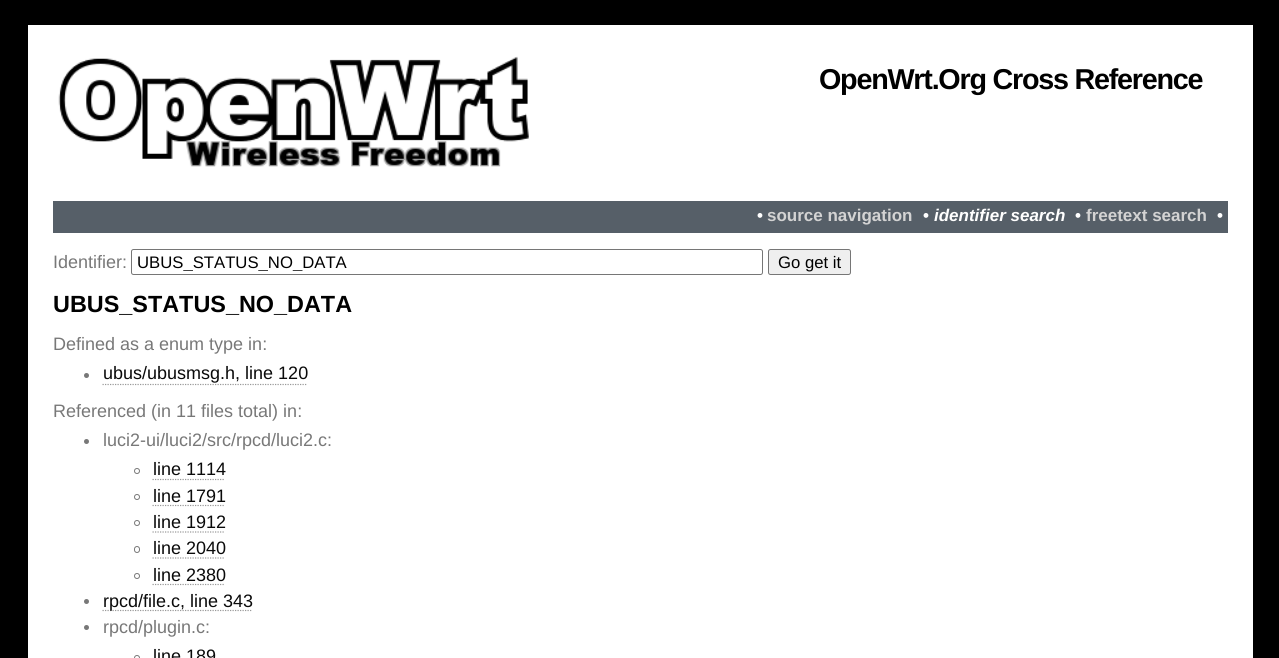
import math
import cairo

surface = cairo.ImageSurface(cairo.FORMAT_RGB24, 1279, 658)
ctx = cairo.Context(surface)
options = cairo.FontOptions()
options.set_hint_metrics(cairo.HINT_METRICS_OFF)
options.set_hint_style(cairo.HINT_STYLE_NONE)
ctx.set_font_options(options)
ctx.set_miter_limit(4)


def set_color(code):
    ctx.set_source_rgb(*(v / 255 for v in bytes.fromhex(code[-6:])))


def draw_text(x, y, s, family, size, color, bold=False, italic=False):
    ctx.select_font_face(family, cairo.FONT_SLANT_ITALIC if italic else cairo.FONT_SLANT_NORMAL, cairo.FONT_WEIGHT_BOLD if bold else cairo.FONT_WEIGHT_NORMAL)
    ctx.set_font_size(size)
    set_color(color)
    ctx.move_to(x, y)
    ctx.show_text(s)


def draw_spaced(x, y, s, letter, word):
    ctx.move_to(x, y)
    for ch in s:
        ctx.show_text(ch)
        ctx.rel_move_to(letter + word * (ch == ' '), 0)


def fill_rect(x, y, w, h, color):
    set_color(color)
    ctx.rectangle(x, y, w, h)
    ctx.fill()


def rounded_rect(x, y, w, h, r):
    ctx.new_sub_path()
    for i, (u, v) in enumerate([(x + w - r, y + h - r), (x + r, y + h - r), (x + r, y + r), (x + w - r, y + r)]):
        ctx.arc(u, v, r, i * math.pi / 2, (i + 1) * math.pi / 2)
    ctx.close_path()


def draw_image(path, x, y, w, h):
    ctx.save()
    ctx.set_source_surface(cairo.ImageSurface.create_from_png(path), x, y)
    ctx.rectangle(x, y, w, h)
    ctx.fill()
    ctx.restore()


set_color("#000000")
ctx.paint()
fill_rect(28, 25, 1225, 633, "#ffffff")
draw_image("assets/img1.png", 58, 56, 471, 111)
ctx.select_font_face("Liberation Sans", cairo.FONT_SLANT_NORMAL, cairo.FONT_WEIGHT_BOLD)
ctx.set_font_size(28.75)
set_color("#000000")
draw_spaced(819, 89, "OpenWrt.Org Cross Reference", -1.25, 0)
fill_rect(53, 201, 1175, 32, "#565f68")
draw_text(757, 221, "•", "Liberation Sans", 17, "#ffffff", bold=True)
draw_text(767, 221, "source navigation", "Liberation Sans", 17, "#d3d3d3", bold=True)
draw_text(923, 221, "•", "Liberation Sans", 17, "#ffffff", bold=True)
draw_text(934, 221, "identifier search", "Liberation Sans", 17, "#ffffff", bold=True, italic=True)
draw_text(1075, 221, "•", "Liberation Sans", 17, "#ffffff", bold=True)
draw_text(1086, 221, "freetext search", "Liberation Sans", 17, "#d3d3d3", bold=True)
draw_text(1217, 221, "•", "Liberation Sans", 17, "#ffffff", bold=True)
draw_text(53, 268, "Identifier:", "Liberation Sans", 18, "#787878")
rounded_rect(131.5, 249.5, 631, 25, 2)
set_color("#767676")
ctx.set_line_width(1)
ctx.stroke()
ctx.save()
ctx.rectangle(136, 253, 622, 18)
ctx.clip()
draw_text(137, 268, "UBUS_STATUS_NO_DATA", "Liberation Sans", 16.7, "#000000")
ctx.restore()
set_color("#efefef")
rounded_rect(768.5, 249.5, 82, 25, 2)
ctx.fill_preserve()
set_color("#767676")
ctx.stroke()
draw_text(778, 268, "Go get it", "Liberation Sans", 16.7, "#000000")
draw_text(53, 312, "UBUS_STATUS_NO_DATA", "Liberation Sans", 23.4, "#000000", bold=True)
draw_text(53, 350, "Defined as a enum type in:", "Liberation Sans", 18, "#787878")
ctx.new_path()
ctx.arc(86.5, 375.5, 2.5, 0, 2 * math.pi)
ctx.fill()
draw_text(103, 379, "ubus/ubusmsg.h, line 120", "Liberation Sans", 18, "#0a0a0a")
ctx.new_path()
ctx.move_to(102.5, 384.5)
ctx.line_to(307.5, 384.5)
set_color("#999999")
ctx.set_line_width(1.2)
ctx.set_dash([1.25, 1.25])
ctx.stroke()
draw_text(53, 417, "Referenced (in 11 files total) in:", "Liberation Sans", 18, "#787878")
ctx.new_path()
ctx.arc(86.5, 441.5, 2.5, 0, 2 * math.pi)
ctx.fill()
draw_text(103, 446, "luci2-ui/luci2/src/rpcd/luci2.c:", "Liberation Sans", 18, "#787878")
ctx.new_path()
ctx.arc(137, 471, 2.5, 0, 2 * math.pi)
ctx.set_line_width(1)
ctx.set_dash([])
ctx.stroke()
draw_text(153, 475, "line 1114", "Liberation Sans", 18, "#0a0a0a")
ctx.new_path()
ctx.move_to(152.5, 479.5)
ctx.line_to(225, 479.5)
set_color("#999999")
ctx.set_line_width(1.2)
ctx.set_dash([1.25, 1.25])
ctx.stroke()
ctx.arc(137, 497, 2.5, 0, 2 * math.pi)
set_color("#787878")
ctx.set_line_width(1)
ctx.set_dash([])
ctx.stroke()
draw_text(153, 502, "line 1791", "Liberation Sans", 18, "#0a0a0a")
ctx.new_path()
ctx.move_to(152.5, 505.5)
ctx.line_to(225, 505.5)
set_color("#999999")
ctx.set_line_width(1.2)
ctx.set_dash([1.25, 1.25])
ctx.stroke()
ctx.arc(137, 523, 2.5, 0, 2 * math.pi)
set_color("#787878")
ctx.set_line_width(1)
ctx.set_dash([])
ctx.stroke()
draw_text(153, 528, "line 1912", "Liberation Sans", 18, "#0a0a0a")
ctx.new_path()
ctx.move_to(152.5, 532)
ctx.line_to(225, 532)
set_color("#999999")
ctx.set_line_width(1.2)
ctx.set_dash([1.25, 1.25])
ctx.stroke()
rounded_rect(134.5, 546.5, 5, 6, 2.5)
set_color("#787878")
ctx.set_line_width(1)
ctx.set_dash([])
ctx.stroke()
draw_text(153, 554, "line 2040", "Liberation Sans", 18, "#0a0a0a")
ctx.new_path()
ctx.move_to(152.5, 558)
ctx.line_to(225, 558)
set_color("#999999")
ctx.set_line_width(1.2)
ctx.set_dash([1.25, 1.25])
ctx.stroke()
ctx.arc(137, 576, 2.5, 0, 2 * math.pi)
set_color("#787878")
ctx.set_line_width(1)
ctx.set_dash([])
ctx.stroke()
draw_text(153, 581, "line 2380", "Liberation Sans", 18, "#0a0a0a")
ctx.new_path()
ctx.move_to(152.5, 584.5)
ctx.line_to(225, 584.5)
set_color("#999999")
ctx.set_line_width(1.2)
ctx.set_dash([1.25, 1.25])
ctx.stroke()
set_color("#787878")
ctx.arc(86.5, 601.5, 2.5, 0, 2 * math.pi)
ctx.fill()
ctx.new_path()
ctx.move_to(102.5, 610.5)
ctx.line_to(252.5, 610.5)
set_color("#999999")
ctx.stroke()
draw_text(103, 607, "rpcd/file.c, line 343", "Liberation Sans", 18, "#0a0a0a")
set_color("#787878")
ctx.new_path()
ctx.arc(86.5, 627.5, 2.5, 0, 2 * math.pi)
ctx.fill()
draw_text(103, 633, "rpcd/plugin.c:", "Liberation Sans", 18, "#787878")
ctx.new_path()
ctx.arc(137, 658, 2.5, 0, 2 * math.pi)
ctx.set_line_width(1)
ctx.set_dash([])
ctx.stroke()
draw_text(153, 662, "line 189", "Liberation Sans", 18, "#0a0a0a")
surface.write_to_png("output.png")
